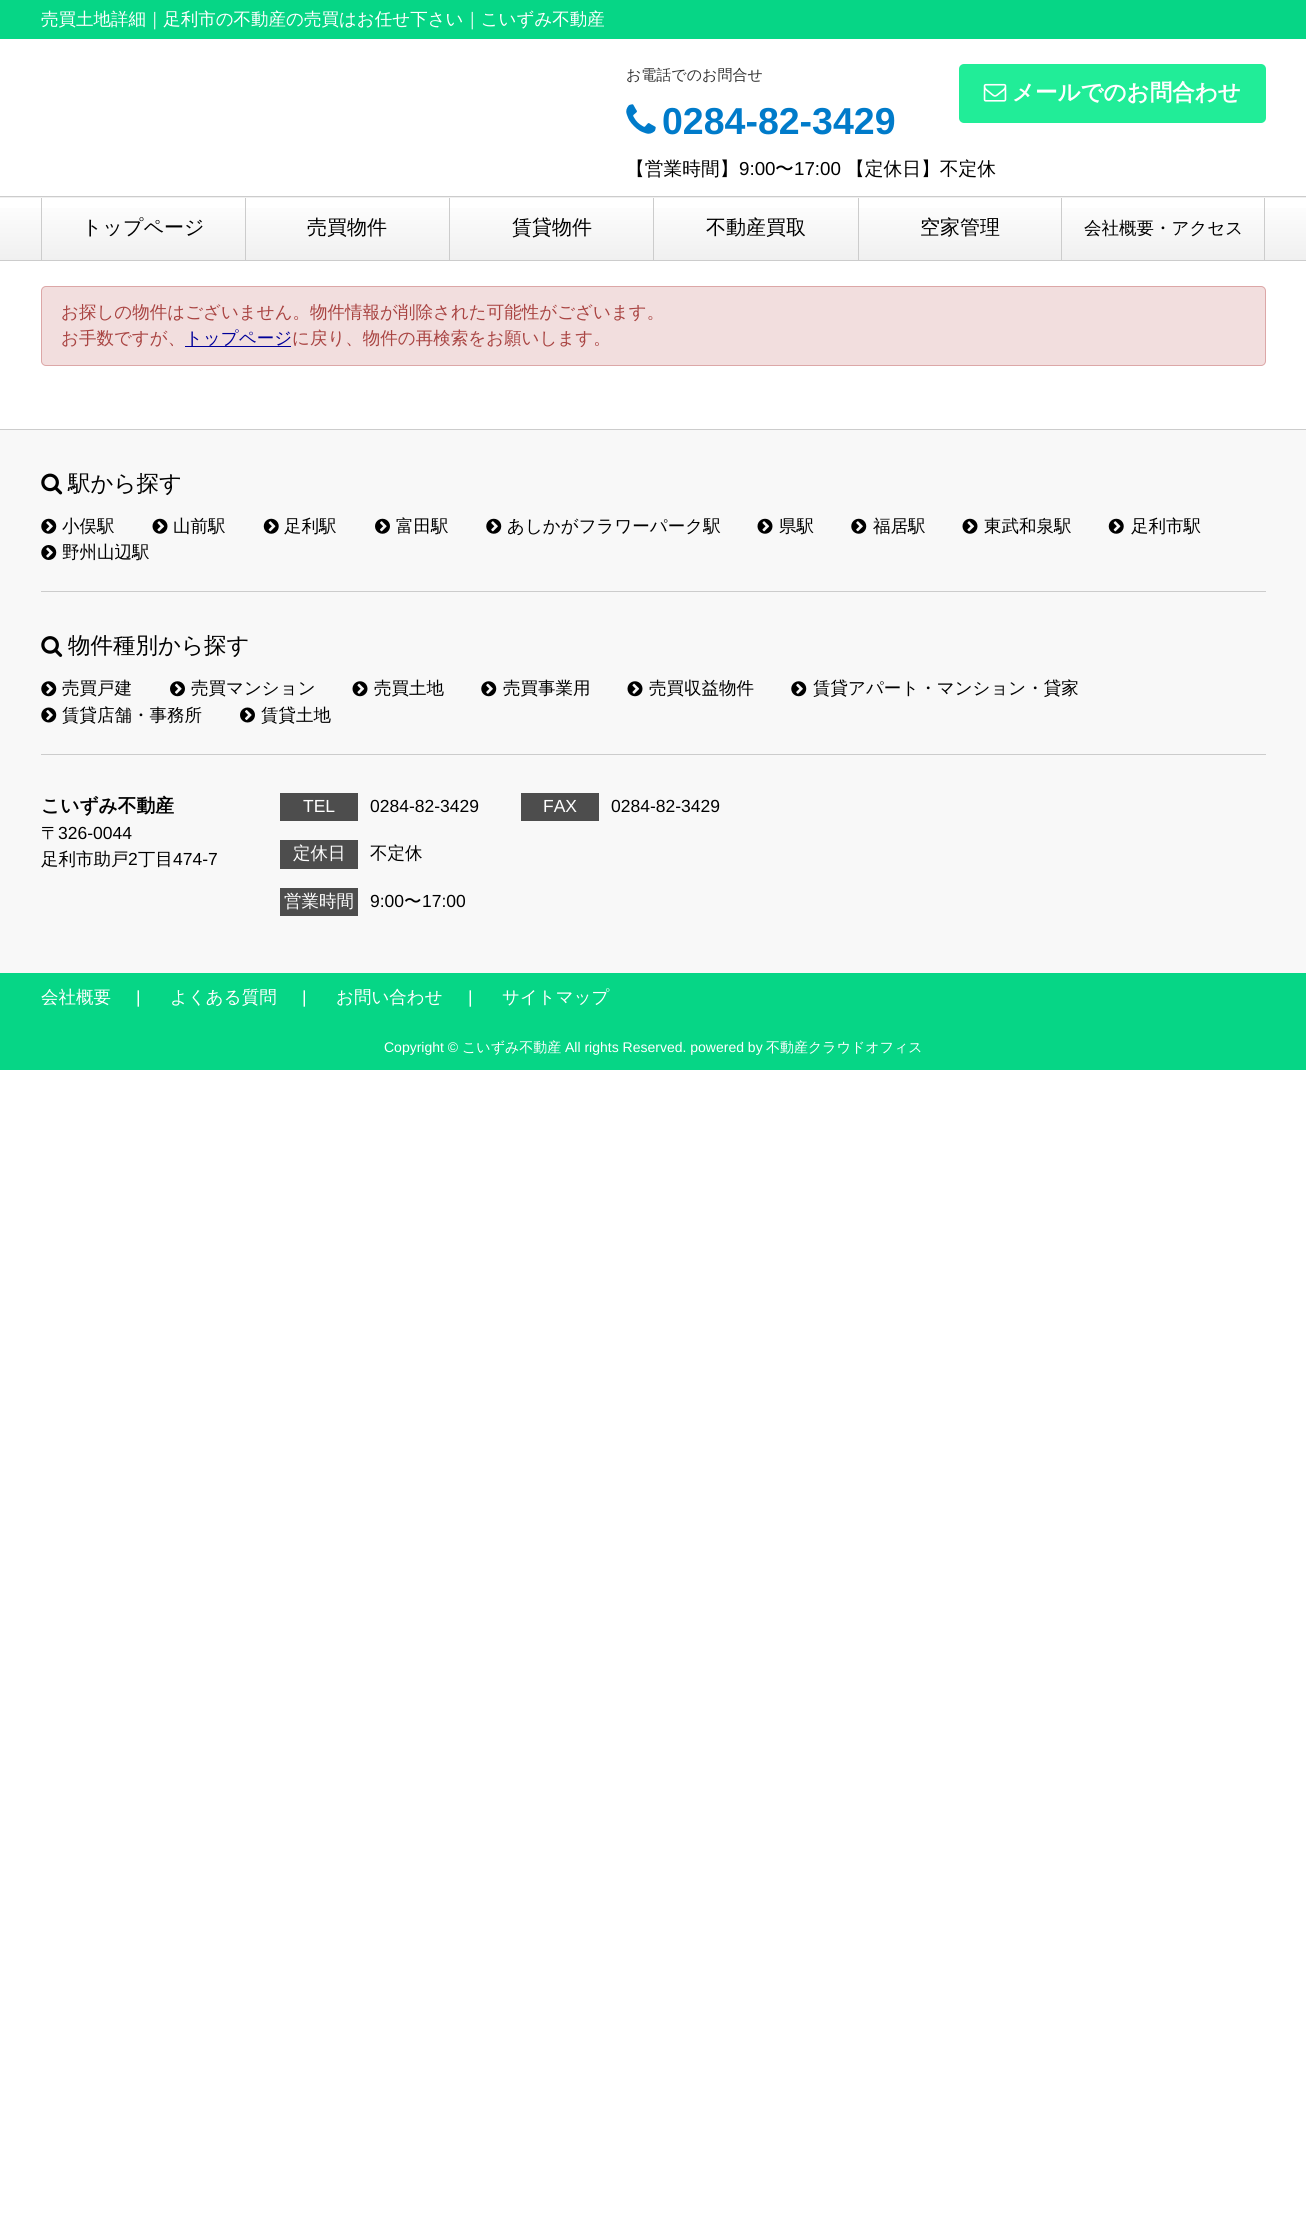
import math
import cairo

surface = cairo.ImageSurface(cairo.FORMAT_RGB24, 1306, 2226)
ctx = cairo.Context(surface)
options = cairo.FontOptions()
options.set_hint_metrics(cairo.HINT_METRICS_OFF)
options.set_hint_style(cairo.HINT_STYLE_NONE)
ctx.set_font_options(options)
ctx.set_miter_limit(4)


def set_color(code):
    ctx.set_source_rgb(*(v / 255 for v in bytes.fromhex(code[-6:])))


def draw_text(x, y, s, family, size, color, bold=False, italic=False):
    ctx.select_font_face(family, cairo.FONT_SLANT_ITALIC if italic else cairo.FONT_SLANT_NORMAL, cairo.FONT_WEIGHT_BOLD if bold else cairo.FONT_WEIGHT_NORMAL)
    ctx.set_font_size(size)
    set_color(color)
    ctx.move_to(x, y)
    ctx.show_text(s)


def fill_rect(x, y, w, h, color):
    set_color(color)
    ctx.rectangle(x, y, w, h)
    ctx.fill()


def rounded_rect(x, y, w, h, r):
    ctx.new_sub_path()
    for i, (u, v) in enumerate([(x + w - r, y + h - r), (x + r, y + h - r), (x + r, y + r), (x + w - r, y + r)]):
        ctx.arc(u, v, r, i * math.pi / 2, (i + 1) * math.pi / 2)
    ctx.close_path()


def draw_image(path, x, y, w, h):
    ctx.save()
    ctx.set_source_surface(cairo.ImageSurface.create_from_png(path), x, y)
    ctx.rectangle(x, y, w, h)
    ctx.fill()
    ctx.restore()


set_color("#ffffff")
ctx.paint()
fill_rect(0, 0, 1306, 39, "#06d686")
draw_text(41, 25, "売買土地詳細｜足利市の不動産の売買はお任せ下さい｜こいずみ不動産", "WenQuanYi Zen Hei Medium", 17.5, "#ffffff")
draw_text(626, 80, "お電話でのお問合せ", "WenQuanYi Zen Hei Medium", 15, "#333333")
draw_image("assets/img1.png", 626, 104, 30, 30)
draw_text(662, 134, "0284-82-3429", "Liberation Sans", 37.5, "#007bca", bold=True)
set_color("#21ed98")
rounded_rect(959, 64, 307, 59, 5)
ctx.fill()
draw_image("assets/img2.png", 983, 83, 24, 19)
draw_text(1012, 100, "メールでのお問合わせ", "WenQuanYi Zen Hei", 22.5, "#ffffff", bold=True)
draw_text(626, 175, "【営業時間】", "WenQuanYi Zen Hei Medium", 18.75, "#000000")
draw_text(739, 175, "9:00", "Liberation Sans", 18.75, "#000000")
draw_text(775, 175, "〜", "WenQuanYi Zen Hei Medium", 18.75, "#000000")
draw_text(794, 175, "17:00", "Liberation Sans", 18.75, "#000000")
draw_text(846, 175, "【定休日】不定休", "WenQuanYi Zen Hei Medium", 18.75, "#000000")
gradient = cairo.LinearGradient(653, 135, 653, 198)
gradient.add_color_stop_rgba(0, 1, 1, 1, 1)
gradient.add_color_stop_rgba(1, 0.941, 0.941, 0.941, 1)
ctx.set_source(gradient)
ctx.rectangle(0, 197, 1306, 1)
ctx.fill()
gradient = cairo.LinearGradient(653, 197, 653, 260)
gradient.add_color_stop_rgba(0, 1, 1, 1, 1)
gradient.add_color_stop_rgba(1, 0.941, 0.941, 0.941, 1)
ctx.set_source(gradient)
ctx.rectangle(0, 208, 1306, 52)
ctx.fill()
fill_rect(0, 196, 1306, 1, "#cccccc")
fill_rect(0, 260, 1306, 1, "#cccccc")
fill_rect(41, 198, 1, 62, "#cccccc")
draw_text(82, 234, "トップページ", "WenQuanYi Zen Hei Medium", 20, "#000000")
fill_rect(245, 198, 1, 62, "#cccccc")
draw_text(307, 234, "売買物件", "WenQuanYi Zen Hei Medium", 20, "#000000")
fill_rect(449, 198, 1, 62, "#cccccc")
draw_text(512, 234, "賃貸物件", "WenQuanYi Zen Hei Medium", 20, "#000000")
fill_rect(653, 198, 1, 62, "#cccccc")
draw_text(706, 234, "不動産買取", "WenQuanYi Zen Hei Medium", 20, "#000000")
fill_rect(858, 198, 1, 62, "#cccccc")
draw_text(920, 234, "空家管理", "WenQuanYi Zen Hei Medium", 20, "#000000")
fill_rect(1264, 198, 1, 62, "#cccccc")
fill_rect(1061, 198, 1, 62, "#cccccc")
draw_text(1084, 234, "会社概要・アクセス", "WenQuanYi Zen Hei Medium", 17.5, "#000000")
set_color("#f2dede")
rounded_rect(41.5, 286.5, 1224, 79, 4.5)
ctx.fill_preserve()
set_color("#dca7a7")
ctx.set_line_width(1)
ctx.stroke()
draw_text(61, 318, "お探しの物件はございません。物件情報が削除された可能性がございます。", "WenQuanYi Zen Hei Medium", 17.5, "#a94442")
draw_text(61, 344, "お手数ですが、", "WenQuanYi Zen Hei Medium", 17.5, "#a94442")
fill_rect(185, 346, 106, 1, "#000099")
draw_text(185, 344, "トップページ", "WenQuanYi Zen Hei Medium", 17.5, "#000099")
draw_text(292, 344, "に戻り、物件の再検索をお願いします。", "WenQuanYi Zen Hei Medium", 17.5, "#a94442")
fill_rect(0, 430, 1306, 543, "#f8f8f8")
fill_rect(0, 429, 1306, 1, "#cccccc")
fill_rect(41, 591, 1225, 1, "#cccccc")
draw_image("assets/img3.png", 41, 473, 22, 22)
draw_text(68, 491, "駅から探す", "WenQuanYi Zen Hei Medium", 22.5, "#000000")
draw_image("assets/img4.png", 41, 518, 16, 16)
draw_text(62, 532, "小俣駅", "WenQuanYi Zen Hei Medium", 17.5, "#000000")
draw_image("assets/img5.png", 152, 518, 16, 16)
draw_text(173, 532, "山前駅", "WenQuanYi Zen Hei Medium", 17.5, "#000000")
draw_image("assets/img6.png", 263, 518, 16, 16)
draw_text(284, 532, "足利駅", "WenQuanYi Zen Hei Medium", 17.5, "#000000")
draw_image("assets/img7.png", 375, 518, 15, 16)
draw_text(396, 532, "富田駅", "WenQuanYi Zen Hei Medium", 17.5, "#000000")
draw_image("assets/img4.png", 486, 518, 16, 16)
draw_text(507, 532, "あしかがフラワーパーク駅", "WenQuanYi Zen Hei Medium", 17.5, "#000000")
draw_image("assets/img5.png", 757, 518, 16, 16)
draw_text(779, 532, "県駅", "WenQuanYi Zen Hei Medium", 17.5, "#000000")
draw_image("assets/img4.png", 851, 518, 16, 16)
draw_text(873, 532, "福居駅", "WenQuanYi Zen Hei Medium", 17.5, "#000000")
draw_image("assets/img5.png", 962, 518, 16, 16)
draw_text(984, 532, "東武和泉駅", "WenQuanYi Zen Hei Medium", 17.5, "#000000")
draw_image("assets/img6.png", 1108, 518, 16, 16)
draw_text(1131, 532, "足利市駅", "WenQuanYi Zen Hei Medium", 17.5, "#000000")
draw_image("assets/img8.png", 41, 545, 16, 15)
draw_text(62, 558, "野州山辺駅", "WenQuanYi Zen Hei Medium", 17.5, "#000000")
fill_rect(41, 754, 1225, 1, "#cccccc")
draw_image("assets/img9.png", 41, 636, 22, 21)
draw_text(68, 653, "物件種別から探す", "WenQuanYi Zen Hei Medium", 22.5, "#000000")
draw_image("assets/img10.png", 41, 681, 16, 16)
draw_text(62, 694, "売買戸建", "WenQuanYi Zen Hei Medium", 17.5, "#000000")
draw_image("assets/img11.png", 170, 681, 15, 16)
draw_text(191, 694, "売買マンション", "WenQuanYi Zen Hei Medium", 17.5, "#000000")
draw_image("assets/img12.png", 352, 681, 16, 16)
draw_text(374, 694, "売買土地", "WenQuanYi Zen Hei Medium", 17.5, "#000000")
draw_image("assets/img10.png", 481, 681, 16, 16)
draw_text(503, 694, "売買事業用", "WenQuanYi Zen Hei Medium", 17.5, "#000000")
draw_image("assets/img12.png", 627, 681, 16, 16)
draw_text(649, 694, "売買収益物件", "WenQuanYi Zen Hei Medium", 17.5, "#000000")
draw_image("assets/img10.png", 791, 681, 16, 16)
draw_text(813, 694, "賃貸アパート・マンション・貸家", "WenQuanYi Zen Hei Medium", 17.5, "#000000")
draw_image("assets/img13.png", 41, 707, 16, 16)
draw_text(62, 721, "賃貸店舗・事務所", "WenQuanYi Zen Hei Medium", 17.5, "#000000")
draw_image("assets/img14.png", 240, 707, 15, 16)
draw_text(261, 721, "賃貸土地", "WenQuanYi Zen Hei Medium", 17.5, "#000000")
draw_text(41, 812, "こいずみ不動産", "WenQuanYi Zen Hei", 18.75, "#000000", bold=True)
draw_text(41, 839, "〒", "WenQuanYi Zen Hei Medium", 17.5, "#000000")
draw_text(58, 839, "326-0044", "Liberation Sans", 17.5, "#000000")
draw_text(41, 865, "足利市助戸", "WenQuanYi Zen Hei Medium", 17.5, "#000000")
draw_text(128, 865, "2", "Liberation Sans", 17.5, "#000000")
draw_text(138, 865, "丁目", "WenQuanYi Zen Hei Medium", 17.5, "#000000")
draw_text(173, 865, "474-7", "Liberation Sans", 17.5, "#000000")
fill_rect(280, 793, 78, 28, "#4d4d4d")
draw_text(303, 812, "TEL", "Liberation Sans", 17.5, "#ffffff")
draw_text(370, 812, "0284-82-3429", "Liberation Sans", 17.5, "#000000")
fill_rect(521, 793, 78, 28, "#4d4d4d")
draw_text(543, 812, "FAX", "Liberation Sans", 17.5, "#ffffff")
draw_text(611, 812, "0284-82-3429", "Liberation Sans", 17.5, "#000000")
fill_rect(280, 840, 78, 29, "#4d4d4d")
draw_text(293, 859, "定休日", "WenQuanYi Zen Hei Medium", 17.5, "#ffffff")
draw_text(370, 859, "不定休", "WenQuanYi Zen Hei Medium", 17.5, "#000000")
fill_rect(280, 888, 78, 28, "#4d4d4d")
draw_text(284, 907, "営業時間", "WenQuanYi Zen Hei Medium", 17.5, "#ffffff")
draw_text(370, 907, "9:00", "Liberation Sans", 17.5, "#000000")
draw_text(404, 907, "〜", "WenQuanYi Zen Hei Medium", 17.5, "#000000")
draw_text(422, 907, "17:00", "Liberation Sans", 17.5, "#000000")
fill_rect(0, 973, 1306, 97, "#06d686")
draw_text(41, 1003, "会社概要", "WenQuanYi Zen Hei Medium", 17.5, "#ffffff")
draw_text(136, 1003, "|", "Liberation Sans", 17.5, "#ffffff")
draw_text(170, 1003, "よくある質問", "WenQuanYi Zen Hei Medium", 17.5, "#ffffff")
draw_text(302, 1003, "|", "Liberation Sans", 17.5, "#ffffff")
draw_text(336, 1003, "お問い合わせ", "WenQuanYi Zen Hei Medium", 17.5, "#ffffff")
draw_text(468, 1003, "|", "Liberation Sans", 17.5, "#ffffff")
draw_text(502, 1003, "サイトマップ", "WenQuanYi Zen Hei Medium", 17.5, "#ffffff")
draw_text(384, 1052, "Copyright ©", "Liberation Sans", 14, "#ffffff")
draw_text(462, 1052, "こいずみ不動産", "WenQuanYi Zen Hei Medium", 14, "#ffffff")
draw_text(565, 1052, "All rights Reserved. powered by", "Liberation Sans", 14, "#ffffff")
draw_text(766, 1052, "不動産クラウドオフィス", "WenQuanYi Zen Hei Medium", 14, "#ffffff")
surface.write_to_png("output.png")
